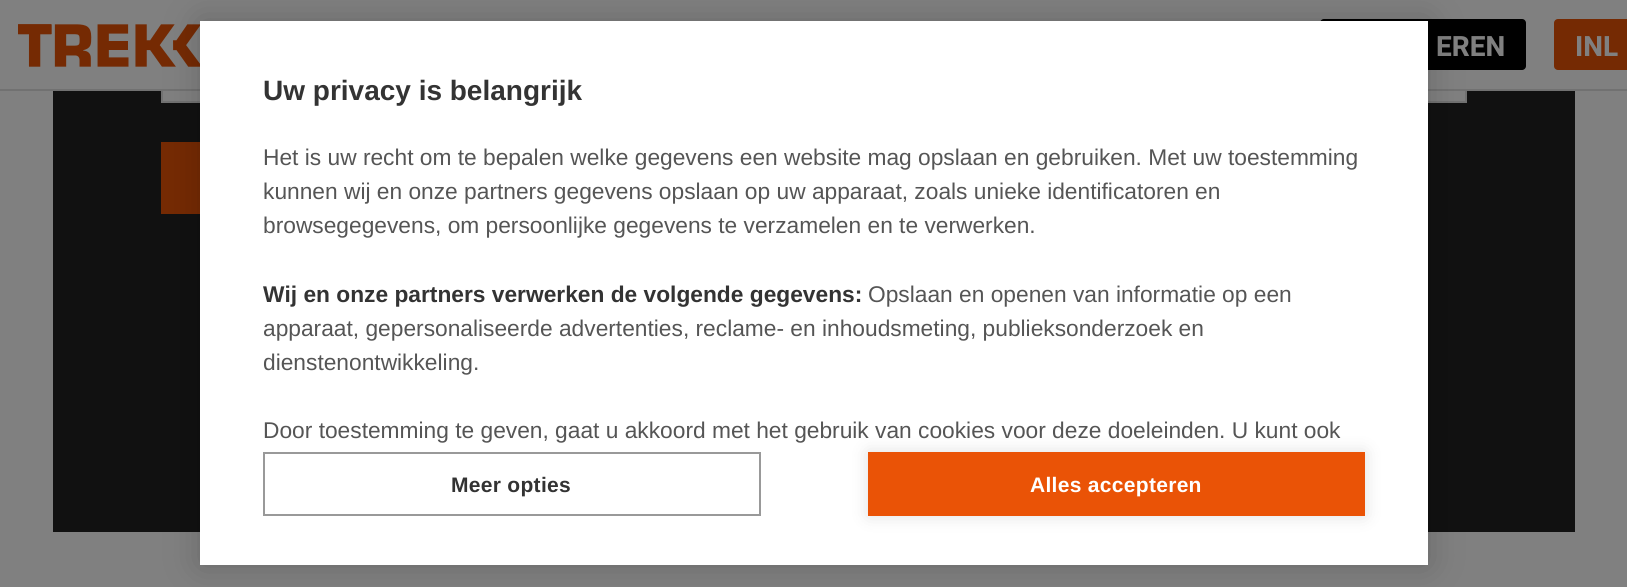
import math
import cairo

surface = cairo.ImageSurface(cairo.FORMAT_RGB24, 1627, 587)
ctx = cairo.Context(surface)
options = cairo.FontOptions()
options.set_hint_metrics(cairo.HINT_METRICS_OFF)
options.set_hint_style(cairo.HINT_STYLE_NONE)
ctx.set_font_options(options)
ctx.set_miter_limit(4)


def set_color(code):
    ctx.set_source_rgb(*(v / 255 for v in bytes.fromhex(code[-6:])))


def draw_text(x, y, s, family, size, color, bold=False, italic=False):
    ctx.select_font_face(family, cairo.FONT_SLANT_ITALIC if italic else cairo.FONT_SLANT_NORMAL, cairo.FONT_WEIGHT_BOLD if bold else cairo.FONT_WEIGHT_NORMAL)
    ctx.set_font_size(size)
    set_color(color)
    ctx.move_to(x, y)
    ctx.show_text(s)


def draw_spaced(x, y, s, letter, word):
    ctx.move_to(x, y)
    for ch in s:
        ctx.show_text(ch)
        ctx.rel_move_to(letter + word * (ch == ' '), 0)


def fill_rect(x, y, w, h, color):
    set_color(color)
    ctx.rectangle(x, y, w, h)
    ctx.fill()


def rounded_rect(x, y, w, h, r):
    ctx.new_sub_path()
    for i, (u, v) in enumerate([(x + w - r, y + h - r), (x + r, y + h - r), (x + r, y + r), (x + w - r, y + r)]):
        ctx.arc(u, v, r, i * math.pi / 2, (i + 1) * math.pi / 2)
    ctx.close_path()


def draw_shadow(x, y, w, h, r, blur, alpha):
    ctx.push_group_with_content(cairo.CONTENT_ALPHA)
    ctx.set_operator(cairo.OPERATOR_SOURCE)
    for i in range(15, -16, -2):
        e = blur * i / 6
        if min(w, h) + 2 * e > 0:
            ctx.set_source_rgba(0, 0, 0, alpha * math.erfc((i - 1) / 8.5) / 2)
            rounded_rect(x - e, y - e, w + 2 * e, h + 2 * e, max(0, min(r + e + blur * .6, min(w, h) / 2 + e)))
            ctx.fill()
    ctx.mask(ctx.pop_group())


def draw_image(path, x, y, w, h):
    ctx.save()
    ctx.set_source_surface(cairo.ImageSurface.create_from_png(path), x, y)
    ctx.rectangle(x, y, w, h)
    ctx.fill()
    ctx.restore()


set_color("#808080")
ctx.paint()
fill_rect(53, 91, 1522, 441, "#111111")
fill_rect(163, 91, 1302, 10, "#808080")
ctx.rectangle(162, -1, 1304, 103)
set_color("#717171")
ctx.stroke()
fill_rect(161, 142, 39, 72, "#752a03")
fill_rect(161, 0, 1306, 89, "#808080")
fill_rect(0, 89, 1627, 2, "#717171")
draw_image("assets/img1.png", 18, 24, 182, 43)
set_color("#000000")
rounded_rect(1320, 19, 206, 51, 4)
ctx.fill()
draw_text(1436, 56, "EREN", "Heebo", 28, "#808080", bold=True)
set_color("#752a03")
rounded_rect(1554, 19, 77, 51, 4)
ctx.fill()
draw_text(1575, 56, "INL", "Heebo", 28, "#808080", bold=True)
set_color("#000000")
draw_shadow(200, 21, 1228, 544, 0, 17.5, 0.2)
fill_rect(200, 21, 1228, 544, "#ffffff")
draw_text(263, 100, "Uw privacy is belangrijk", "Liberation Sans", 28, "#333333", bold=True)
draw_text(263, 165, "Het is uw recht om te bepalen welke gegevens een website mag opslaan en gebruiken. Met uw toestemming", "Liberation Sans", 22.75, "#555555")
draw_text(263, 199, "kunnen wij en onze partners gegevens opslaan op uw apparaat, zoals unieke identificatoren en", "Liberation Sans", 22.75, "#555555")
draw_text(263, 233, "browsegegevens, om persoonlijke gegevens te verzamelen en te verwerken.", "Liberation Sans", 22.75, "#555555")
draw_text(263, 302, "Wij en onze partners verwerken de volgende gegevens:", "Liberation Sans", 22.75, "#333333", bold=True)
draw_text(868, 302, "Opslaan en openen van informatie op een", "Liberation Sans", 22.75, "#555555")
draw_text(263, 336, "apparaat, gepersonaliseerde advertenties, reclame- en inhoudsmeting, publieksonderzoek en", "Liberation Sans", 22.75, "#555555")
draw_text(263, 370, "dienstenontwikkeling.", "Liberation Sans", 22.75, "#555555")
set_color("#000000")
draw_shadow(868, 452, 497, 64, 0, 9, 0.12)
draw_text(263, 438, "Door toestemming te geven, gaat u akkoord met het gebruik van cookies voor deze doeleinden. U kunt ook", "Liberation Sans", 22.75, "#555555")
ctx.rectangle(264, 453, 496, 62)
set_color("#999999")
ctx.stroke()
ctx.select_font_face("Liberation Sans", cairo.FONT_SLANT_NORMAL, cairo.FONT_WEIGHT_BOLD)
ctx.set_font_size(21)
set_color("#333333")
draw_spaced(451, 492, "Meer opties", 0.3, 0)
fill_rect(868, 452, 497, 64, "#ea5306")
set_color("#ffffff")
draw_spaced(1030, 492, "Alles accepteren", 0.3, 0)
surface.write_to_png("output.png")
